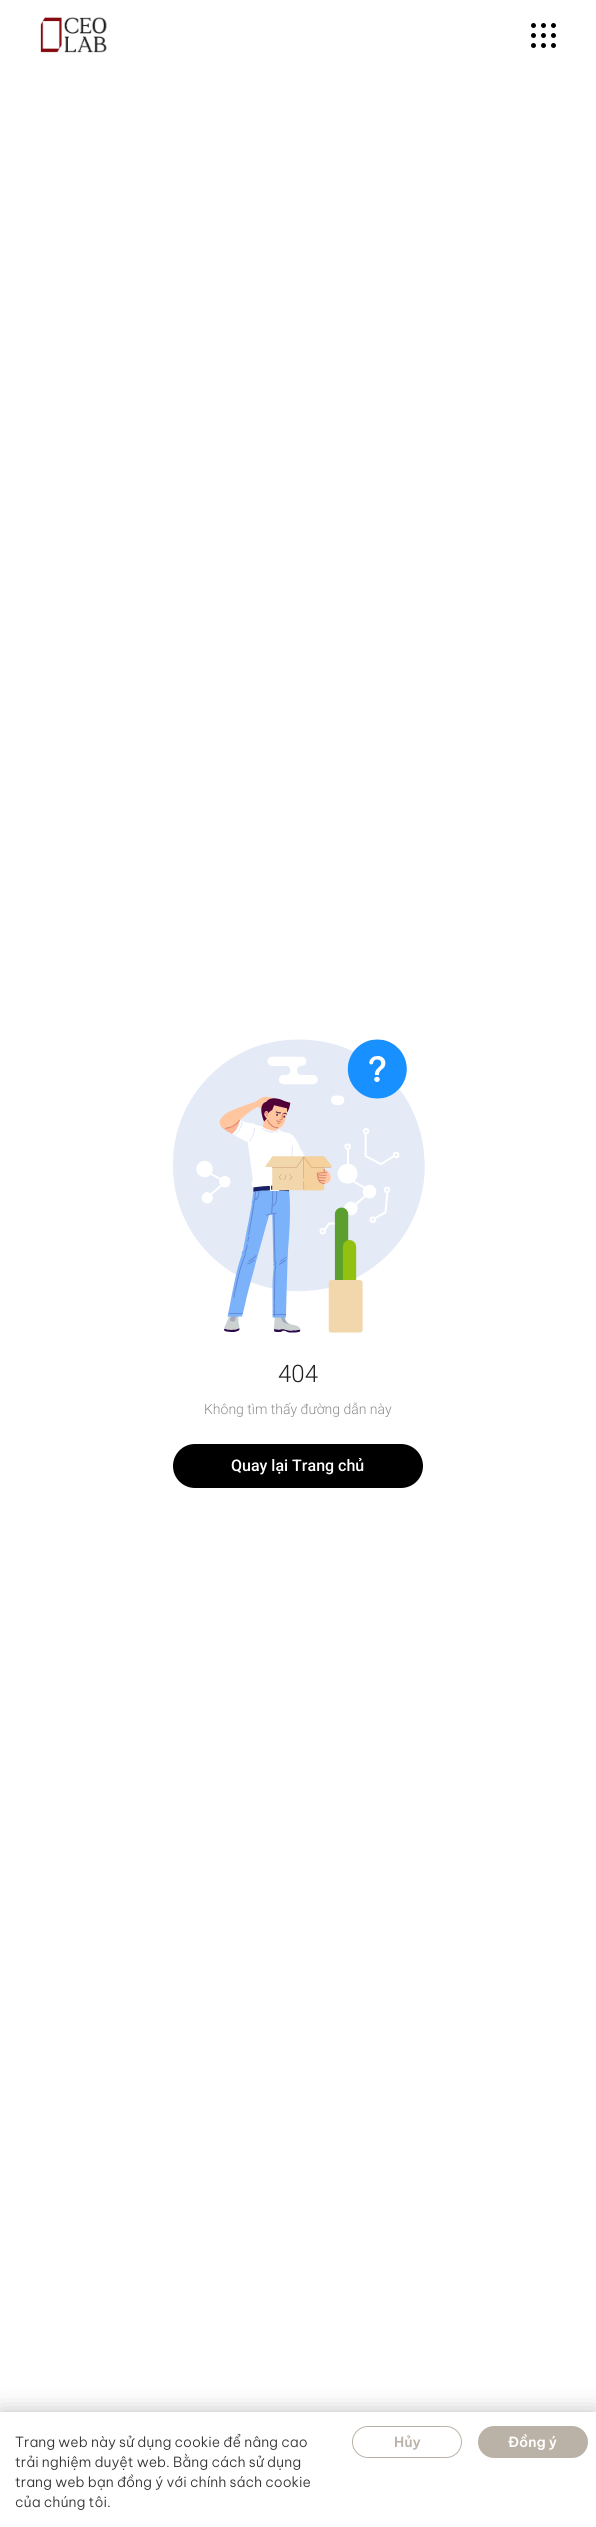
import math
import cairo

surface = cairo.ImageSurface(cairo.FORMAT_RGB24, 596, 2527)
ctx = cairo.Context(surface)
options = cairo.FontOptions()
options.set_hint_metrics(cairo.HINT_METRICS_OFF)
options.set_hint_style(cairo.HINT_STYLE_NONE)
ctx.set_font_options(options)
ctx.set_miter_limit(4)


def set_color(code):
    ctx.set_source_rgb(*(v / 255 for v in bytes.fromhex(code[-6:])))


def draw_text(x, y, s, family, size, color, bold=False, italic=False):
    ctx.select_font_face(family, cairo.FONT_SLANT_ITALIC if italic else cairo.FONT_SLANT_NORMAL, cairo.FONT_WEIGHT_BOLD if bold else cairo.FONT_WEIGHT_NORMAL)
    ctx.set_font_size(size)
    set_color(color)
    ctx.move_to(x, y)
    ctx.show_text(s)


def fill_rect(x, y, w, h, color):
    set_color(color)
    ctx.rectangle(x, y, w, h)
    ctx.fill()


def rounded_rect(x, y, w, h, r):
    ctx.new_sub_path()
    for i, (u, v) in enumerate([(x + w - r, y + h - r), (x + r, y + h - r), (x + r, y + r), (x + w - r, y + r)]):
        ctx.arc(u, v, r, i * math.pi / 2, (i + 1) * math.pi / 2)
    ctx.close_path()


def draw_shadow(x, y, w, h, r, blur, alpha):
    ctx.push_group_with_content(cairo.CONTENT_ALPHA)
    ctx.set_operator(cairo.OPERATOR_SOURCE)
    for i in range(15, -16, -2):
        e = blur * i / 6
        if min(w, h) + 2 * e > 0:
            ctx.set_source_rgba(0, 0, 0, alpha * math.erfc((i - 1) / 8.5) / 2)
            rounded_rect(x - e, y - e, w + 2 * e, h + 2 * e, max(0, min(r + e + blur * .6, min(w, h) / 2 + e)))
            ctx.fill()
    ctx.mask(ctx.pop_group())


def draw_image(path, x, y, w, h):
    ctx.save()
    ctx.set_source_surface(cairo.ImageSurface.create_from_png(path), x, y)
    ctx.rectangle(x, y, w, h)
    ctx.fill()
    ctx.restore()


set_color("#ffffff")
ctx.paint()
draw_image("assets/img1.png", 40, 17, 67, 36)
draw_image("assets/img2.png", 531, 23, 25, 25)
draw_image("assets/img3.png", 173, 1039, 252, 294)
draw_text(278, 1382, "404", "Roboto Light", 24, "#1f1f1f")
draw_text(204, 1414, "Không tìm thấy đường dẫn này", "Roboto Light", 14, "#8c8c8c")
set_color("#000000")
rounded_rect(173, 1444, 250, 44, 22)
ctx.fill()
draw_text(231, 1471, "Quay lại Trang chủ", "Roboto Medium", 16, "#ffffff")
set_color("#000000")
draw_shadow(0, 2412, 596, 115, 0, 12, 0.25)
fill_rect(0, 2412, 596, 115, "#ffffff")
draw_text(15, 2447, "Trang web này sử dụng cookie để nâng cao", "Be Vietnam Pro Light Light", 14, "#333333")
draw_text(15, 2467, "trải nghiệm duyệt web. Bằng cách sử dụng", "Be Vietnam Pro Light Light", 14, "#333333")
draw_text(15, 2487, "trang web bạn đồng ý với chính sách cookie", "Be Vietnam Pro Light Light", 14, "#333333")
draw_text(15, 2507, "của chúng tôi.", "Be Vietnam Pro Light Light", 14, "#333333")
rounded_rect(352.5, 2426.5, 109, 31, 15.5)
set_color("#bbb2a7")
ctx.set_line_width(1)
ctx.stroke()
draw_text(394, 2447, "Hủy", "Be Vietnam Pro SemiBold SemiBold", 14, "#bbb2a7")
rounded_rect(478, 2426, 110, 32, 16)
ctx.fill()
draw_text(508, 2447, "Đồng ý", "Be Vietnam Pro SemiBold SemiBold", 14, "#ffffff")
surface.write_to_png("output.png")
